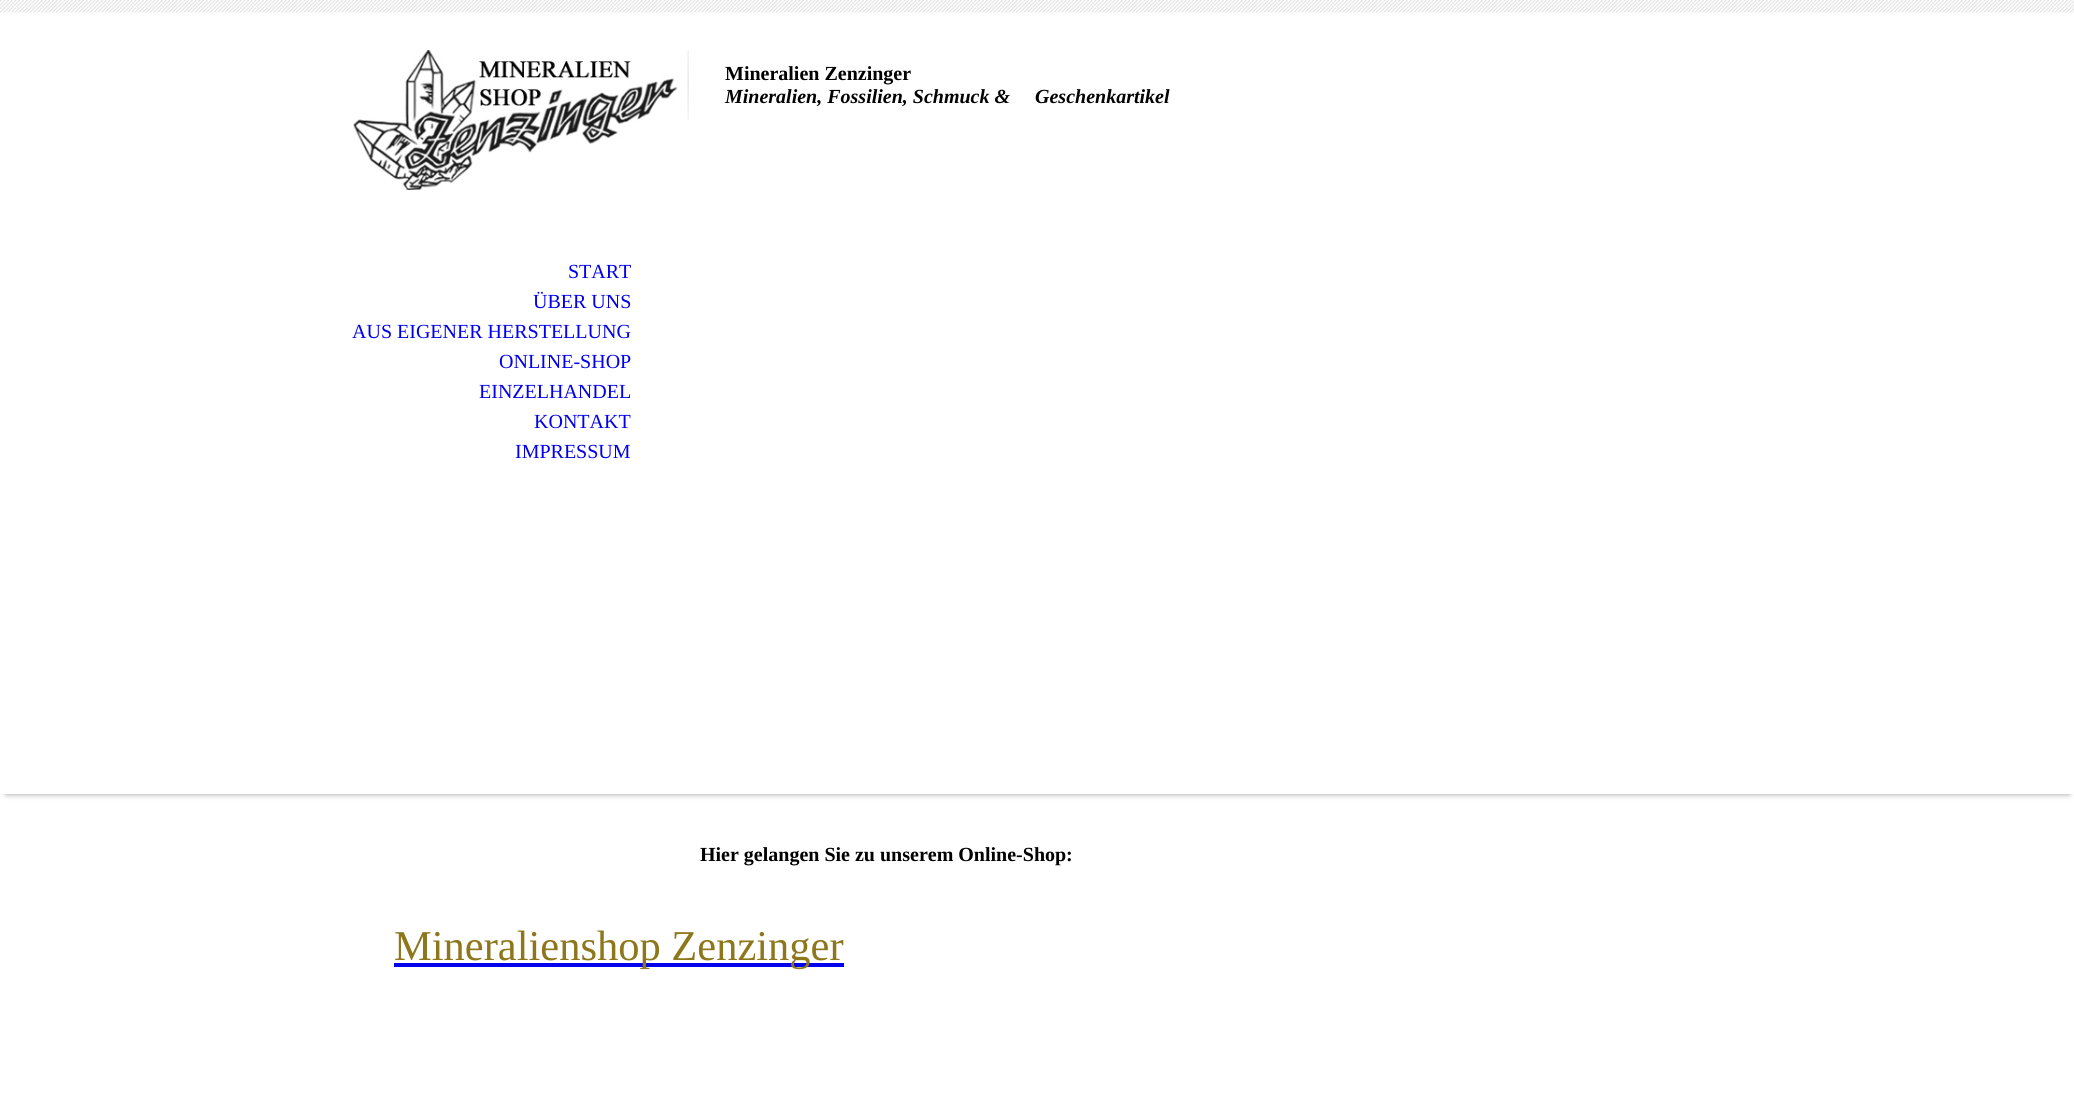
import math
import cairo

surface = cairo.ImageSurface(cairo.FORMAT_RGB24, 2074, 1099)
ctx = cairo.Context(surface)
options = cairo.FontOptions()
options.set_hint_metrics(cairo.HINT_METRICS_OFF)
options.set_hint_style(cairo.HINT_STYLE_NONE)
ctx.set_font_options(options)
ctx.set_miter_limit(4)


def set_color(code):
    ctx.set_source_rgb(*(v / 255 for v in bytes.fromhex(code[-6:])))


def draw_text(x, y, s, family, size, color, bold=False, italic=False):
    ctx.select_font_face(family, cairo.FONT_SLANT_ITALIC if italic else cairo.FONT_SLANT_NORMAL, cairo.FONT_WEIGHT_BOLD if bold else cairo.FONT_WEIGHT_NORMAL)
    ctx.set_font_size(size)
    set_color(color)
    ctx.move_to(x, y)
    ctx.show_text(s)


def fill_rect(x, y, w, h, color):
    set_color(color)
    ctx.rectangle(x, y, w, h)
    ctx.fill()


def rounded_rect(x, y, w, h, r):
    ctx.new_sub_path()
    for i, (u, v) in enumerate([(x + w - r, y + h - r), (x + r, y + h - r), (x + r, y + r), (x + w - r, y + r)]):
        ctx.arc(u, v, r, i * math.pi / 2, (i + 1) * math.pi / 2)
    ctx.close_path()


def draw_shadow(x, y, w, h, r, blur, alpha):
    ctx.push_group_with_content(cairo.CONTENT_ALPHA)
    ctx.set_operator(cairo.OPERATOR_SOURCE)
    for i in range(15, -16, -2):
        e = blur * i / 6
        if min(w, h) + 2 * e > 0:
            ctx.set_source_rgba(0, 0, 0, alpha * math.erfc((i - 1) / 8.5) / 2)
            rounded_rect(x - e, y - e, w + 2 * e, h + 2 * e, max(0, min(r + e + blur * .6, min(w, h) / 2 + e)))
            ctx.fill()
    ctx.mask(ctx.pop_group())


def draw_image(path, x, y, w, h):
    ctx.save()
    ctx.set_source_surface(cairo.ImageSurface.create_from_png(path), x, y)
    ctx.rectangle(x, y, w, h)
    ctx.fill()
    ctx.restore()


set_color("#ffffff")
ctx.paint()
draw_image("assets/img1.png", 0, 0, 2074, 13)
draw_image("assets/img2.png", 353, 50, 325, 140)
draw_image("assets/img3.png", 687, 50, 2, 70)
draw_text(725, 80, "Mineralien Zenzinger", "Liberation Serif", 20, "#000000", bold=True)
draw_text(725, 103, "Mineralien, Fossilien, Schmuck &     Geschenkartikel", "Liberation Serif", 20, "#000000", bold=True, italic=True)
ctx.save()
ctx.set_fill_rule(cairo.FILL_RULE_EVEN_ODD)
ctx.new_path()
ctx.move_to(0, 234)
ctx.line_to(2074, 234)
ctx.line_to(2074, 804)
ctx.line_to(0, 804)
ctx.close_path()
ctx.move_to(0, 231)
ctx.line_to(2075, 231)
ctx.line_to(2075, 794)
ctx.line_to(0, 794)
ctx.close_path()
ctx.clip()
set_color("#000000")
draw_shadow(6, 244, 2063, 550, 0, 3, 0.4)
ctx.restore()
draw_text(568, 278, "START", "Liberation Serif", 20, "#0000ee")
draw_text(533, 308, "ÜBER UNS", "Liberation Serif", 20, "#0000ee")
draw_text(352, 338, "AUS EIGENER HERSTELLUNG", "Liberation Serif", 20, "#0000ee")
draw_text(499, 368, "ONLINE-SHOP", "Liberation Serif", 20, "#0000ee")
draw_text(479, 398, "EINZELHANDEL", "Liberation Serif", 20, "#0000ee")
draw_text(534, 428, "KONTAKT", "Liberation Serif", 20, "#0000ee")
draw_text(515, 458, "IMPRESSUM", "Liberation Serif", 20, "#0000ee")
draw_text(700, 861, "Hier gelangen Sie zu unserem Online-Shop:", "Liberation Serif", 20, "#000000", bold=True)
fill_rect(394, 963, 450, 4, "#0000ee")
draw_text(394, 960, "Mineralienshop Zenzinger", "Liberation Serif", 42.5, "#8d761b")
surface.write_to_png("output.png")
